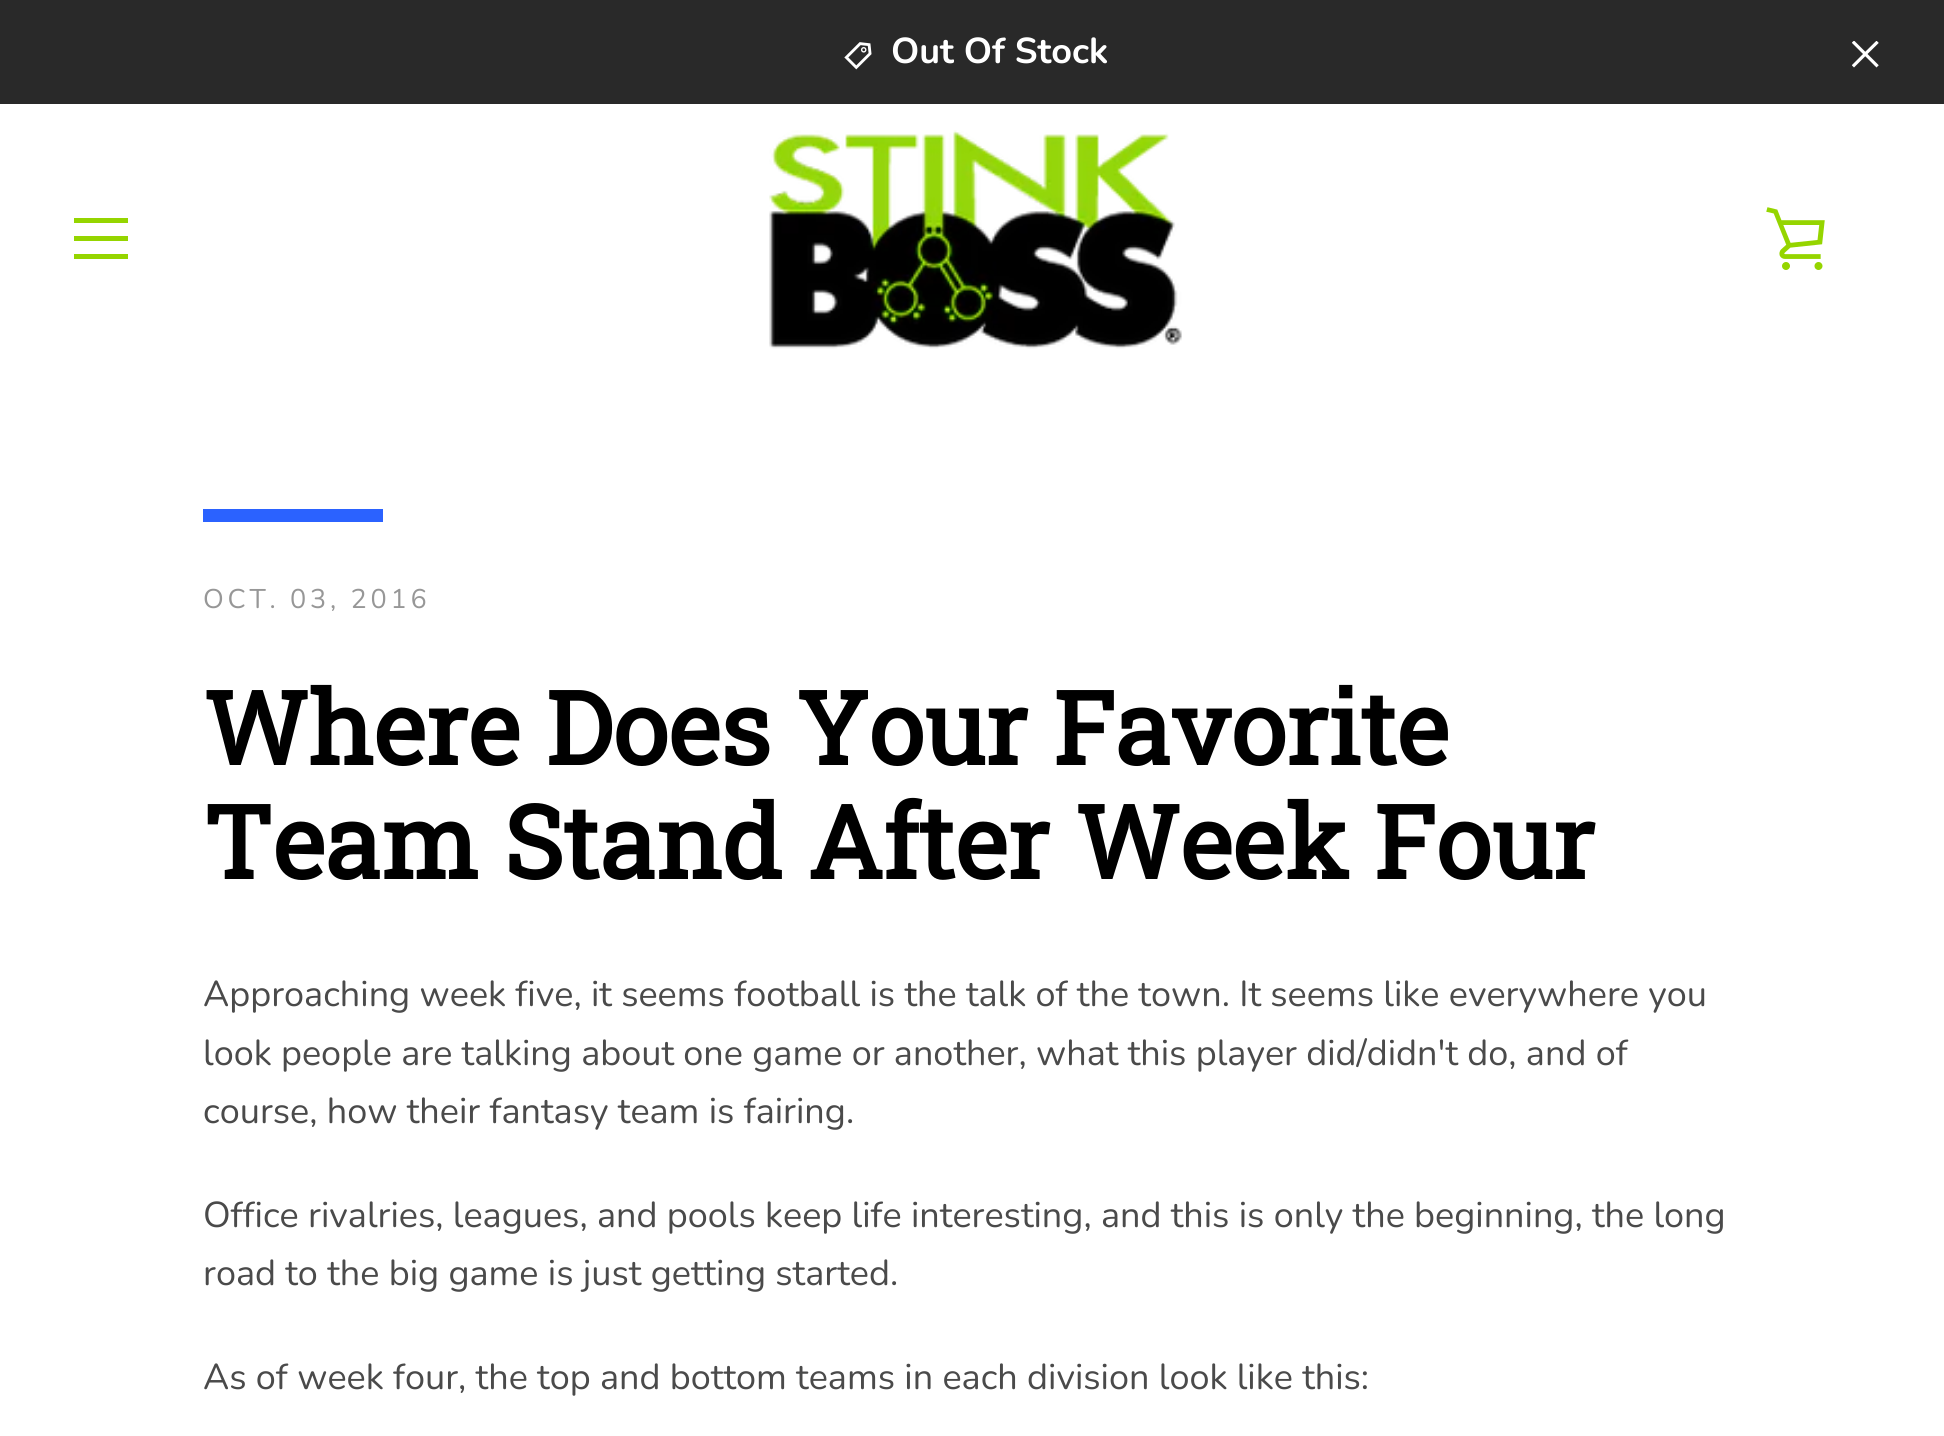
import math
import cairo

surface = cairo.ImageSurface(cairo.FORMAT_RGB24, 1944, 1436)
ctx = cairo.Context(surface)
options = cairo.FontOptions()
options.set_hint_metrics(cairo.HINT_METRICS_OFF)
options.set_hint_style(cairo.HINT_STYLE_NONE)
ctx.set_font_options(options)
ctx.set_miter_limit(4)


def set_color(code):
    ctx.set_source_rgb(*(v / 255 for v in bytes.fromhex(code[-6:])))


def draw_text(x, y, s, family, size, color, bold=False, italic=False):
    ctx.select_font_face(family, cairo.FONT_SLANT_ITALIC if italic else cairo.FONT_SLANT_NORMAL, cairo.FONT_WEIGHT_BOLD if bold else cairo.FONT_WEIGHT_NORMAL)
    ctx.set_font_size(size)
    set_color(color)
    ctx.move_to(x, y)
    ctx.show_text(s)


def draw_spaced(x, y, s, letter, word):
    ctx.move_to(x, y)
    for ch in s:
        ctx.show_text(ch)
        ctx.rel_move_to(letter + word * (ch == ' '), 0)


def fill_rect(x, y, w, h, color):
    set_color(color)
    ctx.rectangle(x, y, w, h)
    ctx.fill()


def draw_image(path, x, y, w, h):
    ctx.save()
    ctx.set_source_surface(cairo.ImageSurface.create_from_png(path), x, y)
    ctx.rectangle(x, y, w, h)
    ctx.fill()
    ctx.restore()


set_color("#ffffff")
ctx.paint()
fill_rect(0, 0, 1944, 104, "#292929")
draw_image("assets/img1.png", 844, 42, 28, 28)
draw_text(891, 63, "Out Of Stock", "Nunito", 36, "#ffffff", bold=True)
draw_image("assets/img2.png", 1852, 41, 27, 27)
fill_rect(74, 218, 54, 5, "#95d500")
fill_rect(74, 236, 54, 5, "#95d500")
fill_rect(74, 254, 54, 5, "#95d500")
draw_image("assets/img3.png", 769, 130, 413, 219)
draw_image("assets/img4.png", 1766, 207, 59, 63)
fill_rect(203, 509, 180, 13, "#2b62ff")
ctx.select_font_face("Nunito")
ctx.set_font_size(27)
set_color("#979797")
draw_spaced(203, 608, "OCT. 03, 2016", 3.75, 0)
draw_text(203, 765, "Where Does Your Favorite", "Roboto Slab", 101.25, "#000000", bold=True)
draw_text(203, 879, "Team Stand After Week Four", "Roboto Slab", 101.25, "#000000", bold=True)
draw_text(203, 1006, "Approaching week five, it seems football is the talk of the town. It seems like everywhere you", "Nunito", 36, "#4a4a4a")
draw_text(203, 1065, "look people are talking about one game or another, what this player did/didn't do, and of", "Nunito", 36, "#4a4a4a")
draw_text(203, 1123, "course, how their fantasy team is fairing.", "Nunito", 36, "#4a4a4a")
draw_text(203, 1227, "Office rivalries, leagues, and pools keep life interesting, and this is only the beginning, the long", "Nunito", 36, "#4a4a4a")
draw_text(203, 1285, "road to the big game is just getting started.", "Nunito", 36, "#4a4a4a")
draw_text(203, 1389, "As of week four, the top and bottom teams in each division look like this:", "Nunito", 36, "#4a4a4a")
surface.write_to_png("output.png")
